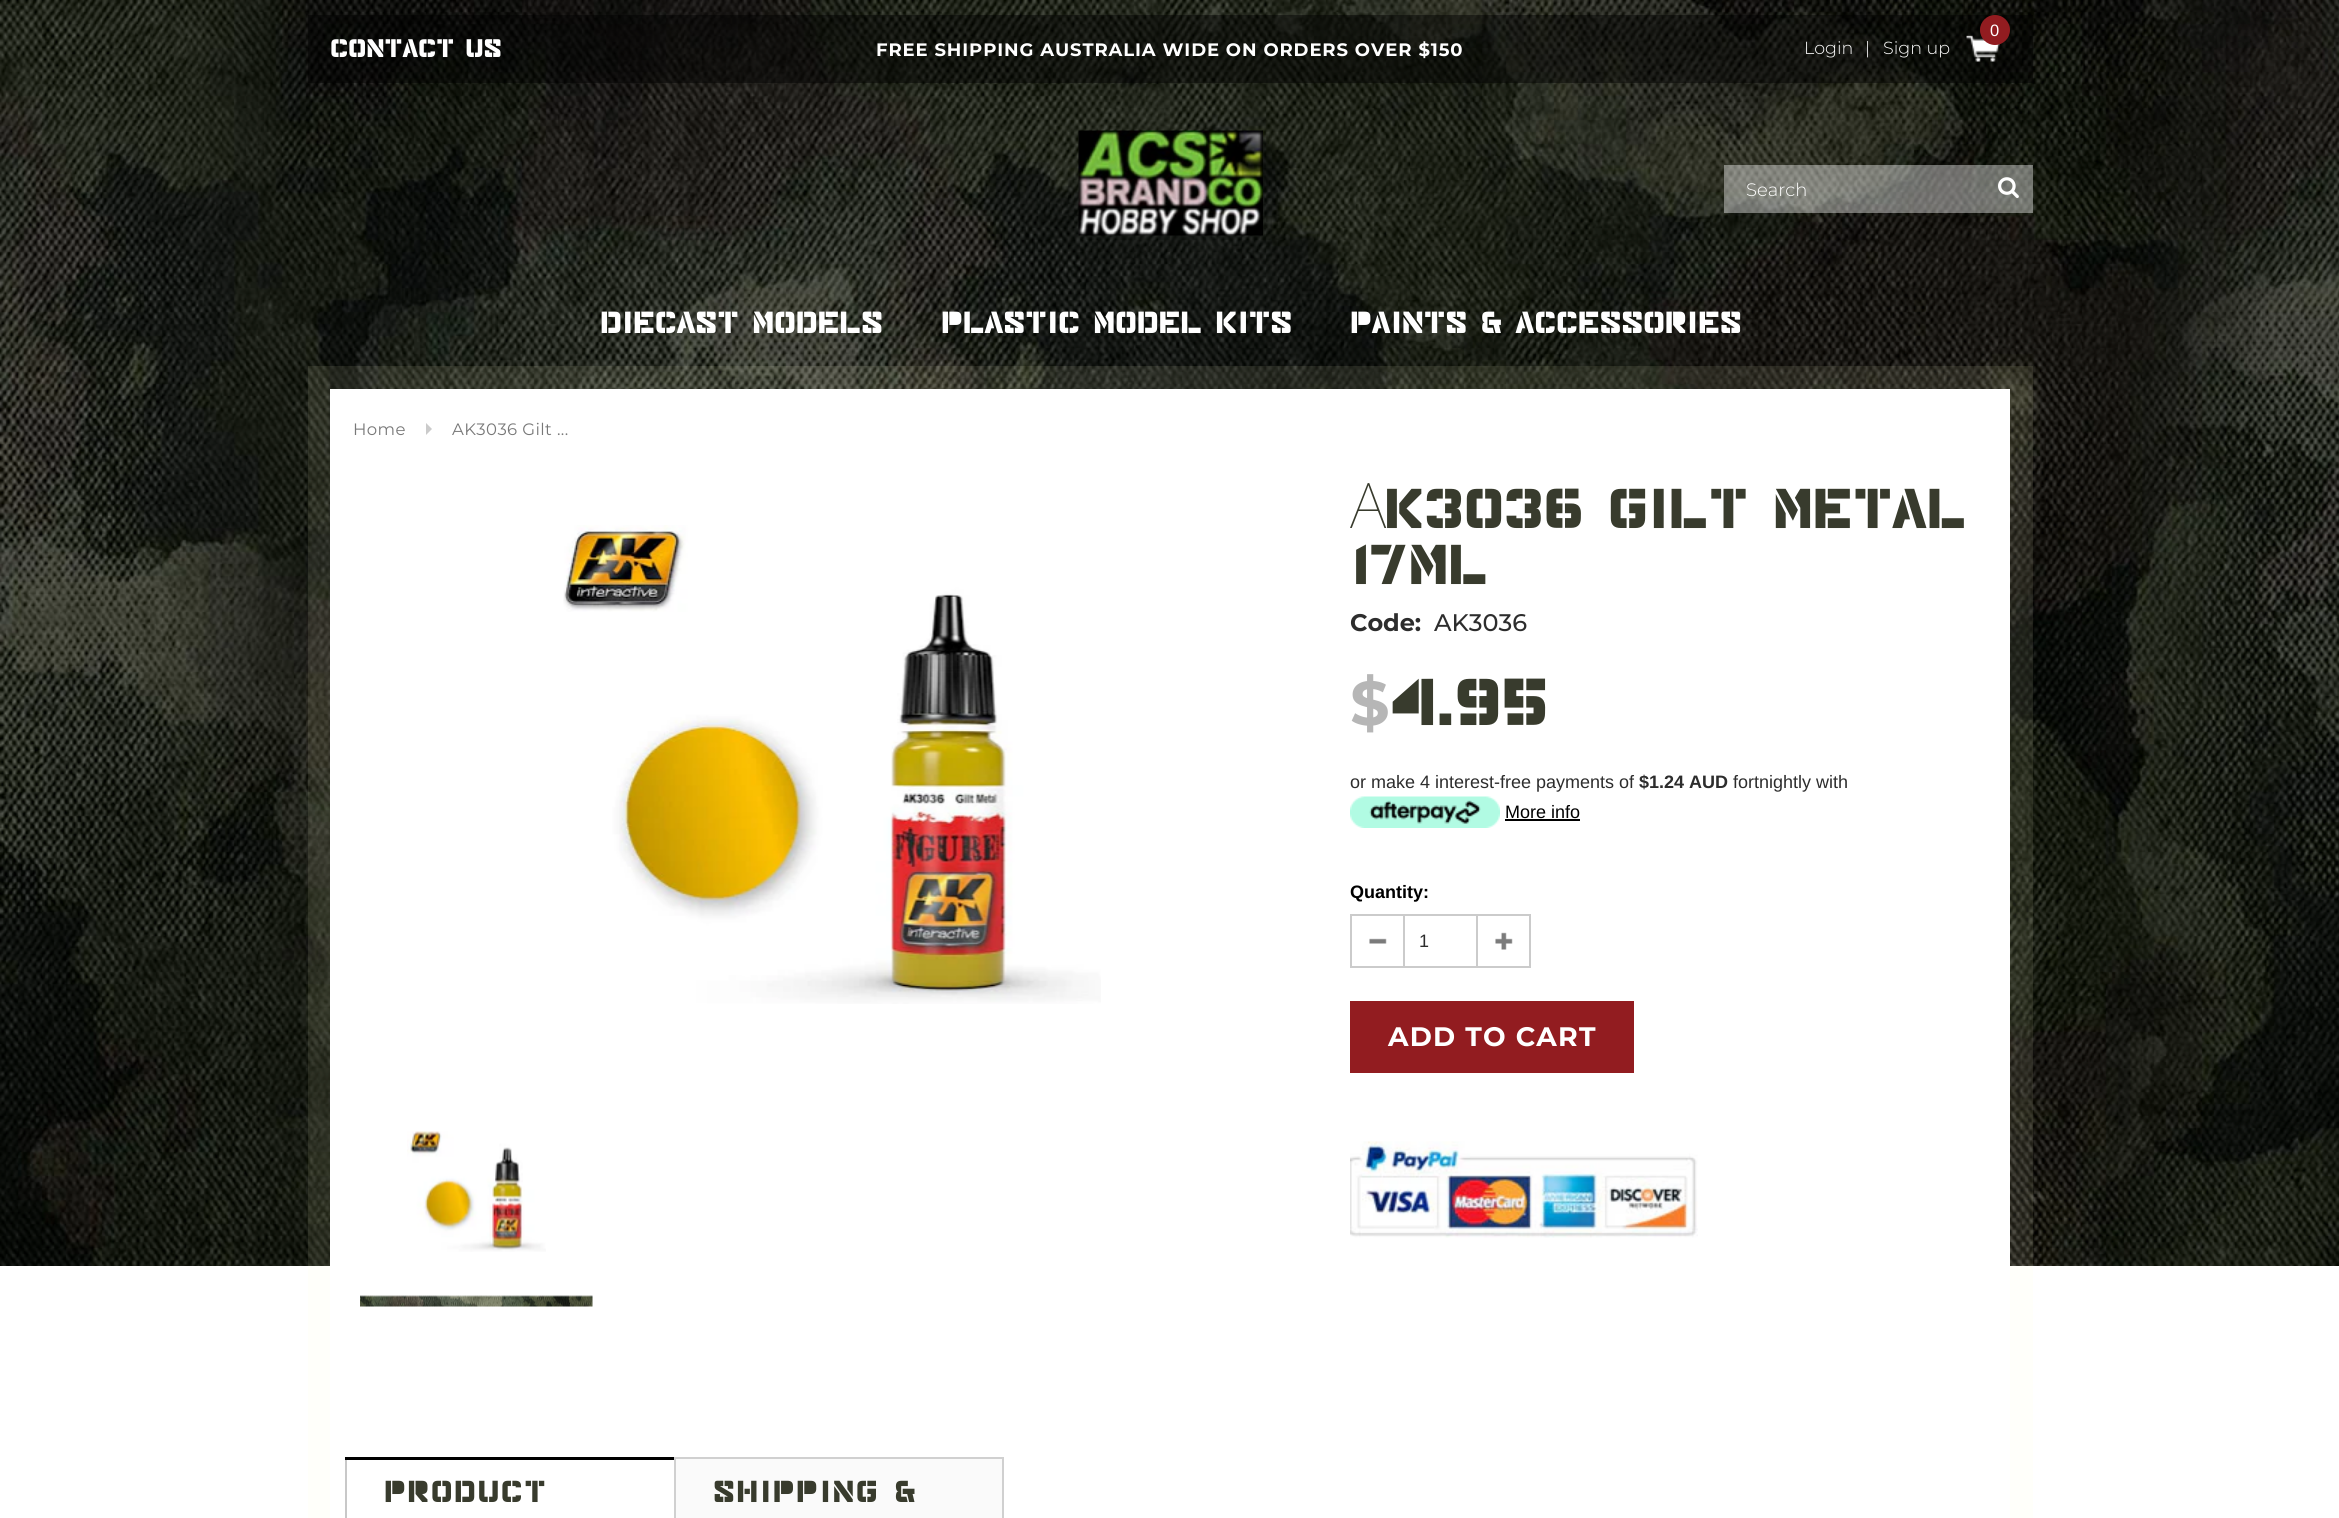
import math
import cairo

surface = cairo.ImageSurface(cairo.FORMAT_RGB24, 2339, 1518)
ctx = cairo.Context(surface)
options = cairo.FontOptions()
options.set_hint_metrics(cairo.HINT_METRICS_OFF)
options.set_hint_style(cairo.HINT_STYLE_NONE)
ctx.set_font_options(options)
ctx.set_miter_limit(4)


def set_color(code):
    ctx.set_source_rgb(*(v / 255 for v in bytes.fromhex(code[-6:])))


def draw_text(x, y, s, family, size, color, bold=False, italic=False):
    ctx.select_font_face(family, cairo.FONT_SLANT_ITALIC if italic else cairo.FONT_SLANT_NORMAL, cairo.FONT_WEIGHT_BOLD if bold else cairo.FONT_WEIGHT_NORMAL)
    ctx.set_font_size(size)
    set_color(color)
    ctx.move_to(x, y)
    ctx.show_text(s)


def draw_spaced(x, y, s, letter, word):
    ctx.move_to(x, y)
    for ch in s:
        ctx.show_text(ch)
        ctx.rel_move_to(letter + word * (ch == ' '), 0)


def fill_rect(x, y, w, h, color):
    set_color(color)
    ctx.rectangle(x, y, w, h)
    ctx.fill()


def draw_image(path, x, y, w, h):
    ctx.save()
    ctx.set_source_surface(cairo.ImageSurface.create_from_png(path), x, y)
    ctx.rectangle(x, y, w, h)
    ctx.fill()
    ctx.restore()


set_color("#ffffff")
ctx.paint()
draw_image("assets/img1.png", 0, 0, 2339, 1266)
ctx.set_source_rgba(0, 0, 0, 0.45)
ctx.rectangle(308, 15, 1725, 68)
ctx.fill()
draw_text(330, 57, "CONTACT US", "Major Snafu", 28.5, "#ffffff")
ctx.select_font_face("Montserrat", cairo.FONT_SLANT_NORMAL, cairo.FONT_WEIGHT_BOLD)
ctx.set_font_size(18)
draw_spaced(876, 56, "FREE SHIPPING AUSTRALIA WIDE ON ORDERS OVER $150", 0.9, 0)
draw_image("assets/img2.png", 1966, 35, 34, 27)
set_color("#921c20")
ctx.arc(1995, 30, 15, 0, 2 * math.pi)
ctx.fill()
draw_text(1990, 36, "0", "Liberation Sans", 16.5, "#ffffff")
draw_text(1804, 54, "Login", "Montserrat Light", 17.5, "#ffffff")
draw_text(1865, 54, "|", "Montserrat Light", 17.5, "#ffffff")
draw_text(1883, 54, "Sign up", "Montserrat Light", 17.5, "#ffffff")
draw_image("assets/img3.png", 1078, 130, 185, 106)
ctx.set_source_rgba(1, 1, 1, 0.4)
ctx.rectangle(1724, 165, 309, 48)
ctx.fill()
draw_text(1746, 196, "Search", "Montserrat Light", 18, "#ffffff")
draw_image("assets/img4.png", 1998, 177, 21, 21)
draw_text(600, 333, "DIECAST MODELS", "Major Snafu", 34.25, "#ffffff")
draw_text(941, 333, "PLASTIC MODEL KITS", "Major Snafu", 34.25, "#ffffff")
draw_text(1350, 333, "PAINTS & ACCESSORIES", "Major Snafu", 34.25, "#ffffff")
ctx.rectangle(319.5, 377.5, 1702, 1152)
ctx.set_source_rgba(1, 1, 0.8, 0.1)
ctx.set_line_width(23)
ctx.stroke()
fill_rect(330, 389, 1680, 1129, "#ffffff")
ctx.select_font_face("Montserrat")
ctx.set_font_size(16.5)
set_color("#787878")
draw_spaced(353, 435, "Home", 0.4, 0)
set_color("#cbcbcb")
ctx.new_path()
ctx.move_to(426, 435)
ctx.line_to(426, 423)
ctx.line_to(432, 429)
ctx.close_path()
ctx.fill()
set_color("#787878")
draw_spaced(452, 435, "AK3036 Gilt ...", 0.4, 0)
draw_image("assets/img5.png", 563, 525, 538, 479)
draw_image("assets/img6.png", 407, 1131, 139, 121)
draw_image("assets/img7.png", 360, 1295, 233, 12)
draw_text(1350, 528, "A", "Noto Sans Thin", 62.75, "#383b2d")
draw_text(1384, 528, "K3036 GILT METAL", "Major Snafu", 62.75, "#383b2d")
draw_text(1350, 584, "17ML", "Major Snafu", 62.75, "#383b2d")
draw_text(1350, 631, "Code:", "Montserrat", 24, "#2d2d2d", bold=True)
draw_text(1434, 631, "AK3036", "Montserrat Medium", 24, "#2d2d2d")
draw_text(1350, 725, "$", "Montserrat", 62, "#b6b6b6", bold=True)
draw_text(1389, 725, "4.95", "Major Snafu", 74, "#383b2d")
draw_text(1350, 788, "or make 4 interest-free payments of", "Liberation Sans", 18, "#2d2d2d")
draw_text(1639, 788, "$1.24 AUD", "Liberation Sans", 18, "#2d2d2d", bold=True)
draw_text(1733, 788, "fortnightly with", "Liberation Sans", 18, "#2d2d2d")
draw_image("assets/img8.png", 1350, 796, 150, 32)
draw_text(1505, 818, "More info", "Liberation Sans", 18, "#000000")
fill_rect(1505, 819, 75, 2, "#000000")
draw_text(1350, 898, "Quantity:", "Liberation Sans", 18, "#000000", bold=True)
draw_image("assets/img9.png", 1369, 938, 18, 6)
fill_rect(1350, 914, 53, 2, "#cbcbcb")
fill_rect(1350, 966, 53, 2, "#cbcbcb")
fill_rect(1350, 914, 2, 54, "#cbcbcb")
ctx.rectangle(1404, 915, 73, 52)
ctx.set_line_width(2)
ctx.stroke()
draw_text(1419, 947, "1", "Liberation Sans", 18, "#2d2d2d")
draw_image("assets/img10.png", 1495, 932, 18, 18)
fill_rect(1478, 914, 52, 2, "#cbcbcb")
fill_rect(1529, 914, 2, 54, "#cbcbcb")
fill_rect(1478, 966, 52, 2, "#cbcbcb")
fill_rect(1350, 1001, 284, 72, "#921c20")
ctx.select_font_face("Montserrat", cairo.FONT_SLANT_NORMAL, cairo.FONT_WEIGHT_BOLD)
ctx.set_font_size(26.75)
set_color("#ffffff")
draw_spaced(1388, 1046, "ADD TO CART", 1.25, 0)
draw_image("assets/img11.png", 1350, 1141, 348, 97)
fill_rect(345, 1457, 330, 3, "#000000")
fill_rect(345, 1460, 2, 58, "#c8c8c8")
ctx.select_font_face("Major Snafu")
ctx.set_font_size(34)
set_color("#383b2d")
draw_spaced(384, 1502, "PRODUCT", 1.75, 0)
fill_rect(676, 1459, 326, 59, "#fafafa")
fill_rect(674, 1457, 330, 2, "#d0d0d0")
fill_rect(1002, 1457, 2, 61, "#d0d0d0")
fill_rect(674, 1457, 2, 61, "#d0d0d0")
set_color("#383b2d")
draw_spaced(713, 1502, "SHIPPING &", 1.75, 0)
surface.write_to_png("output.png")
